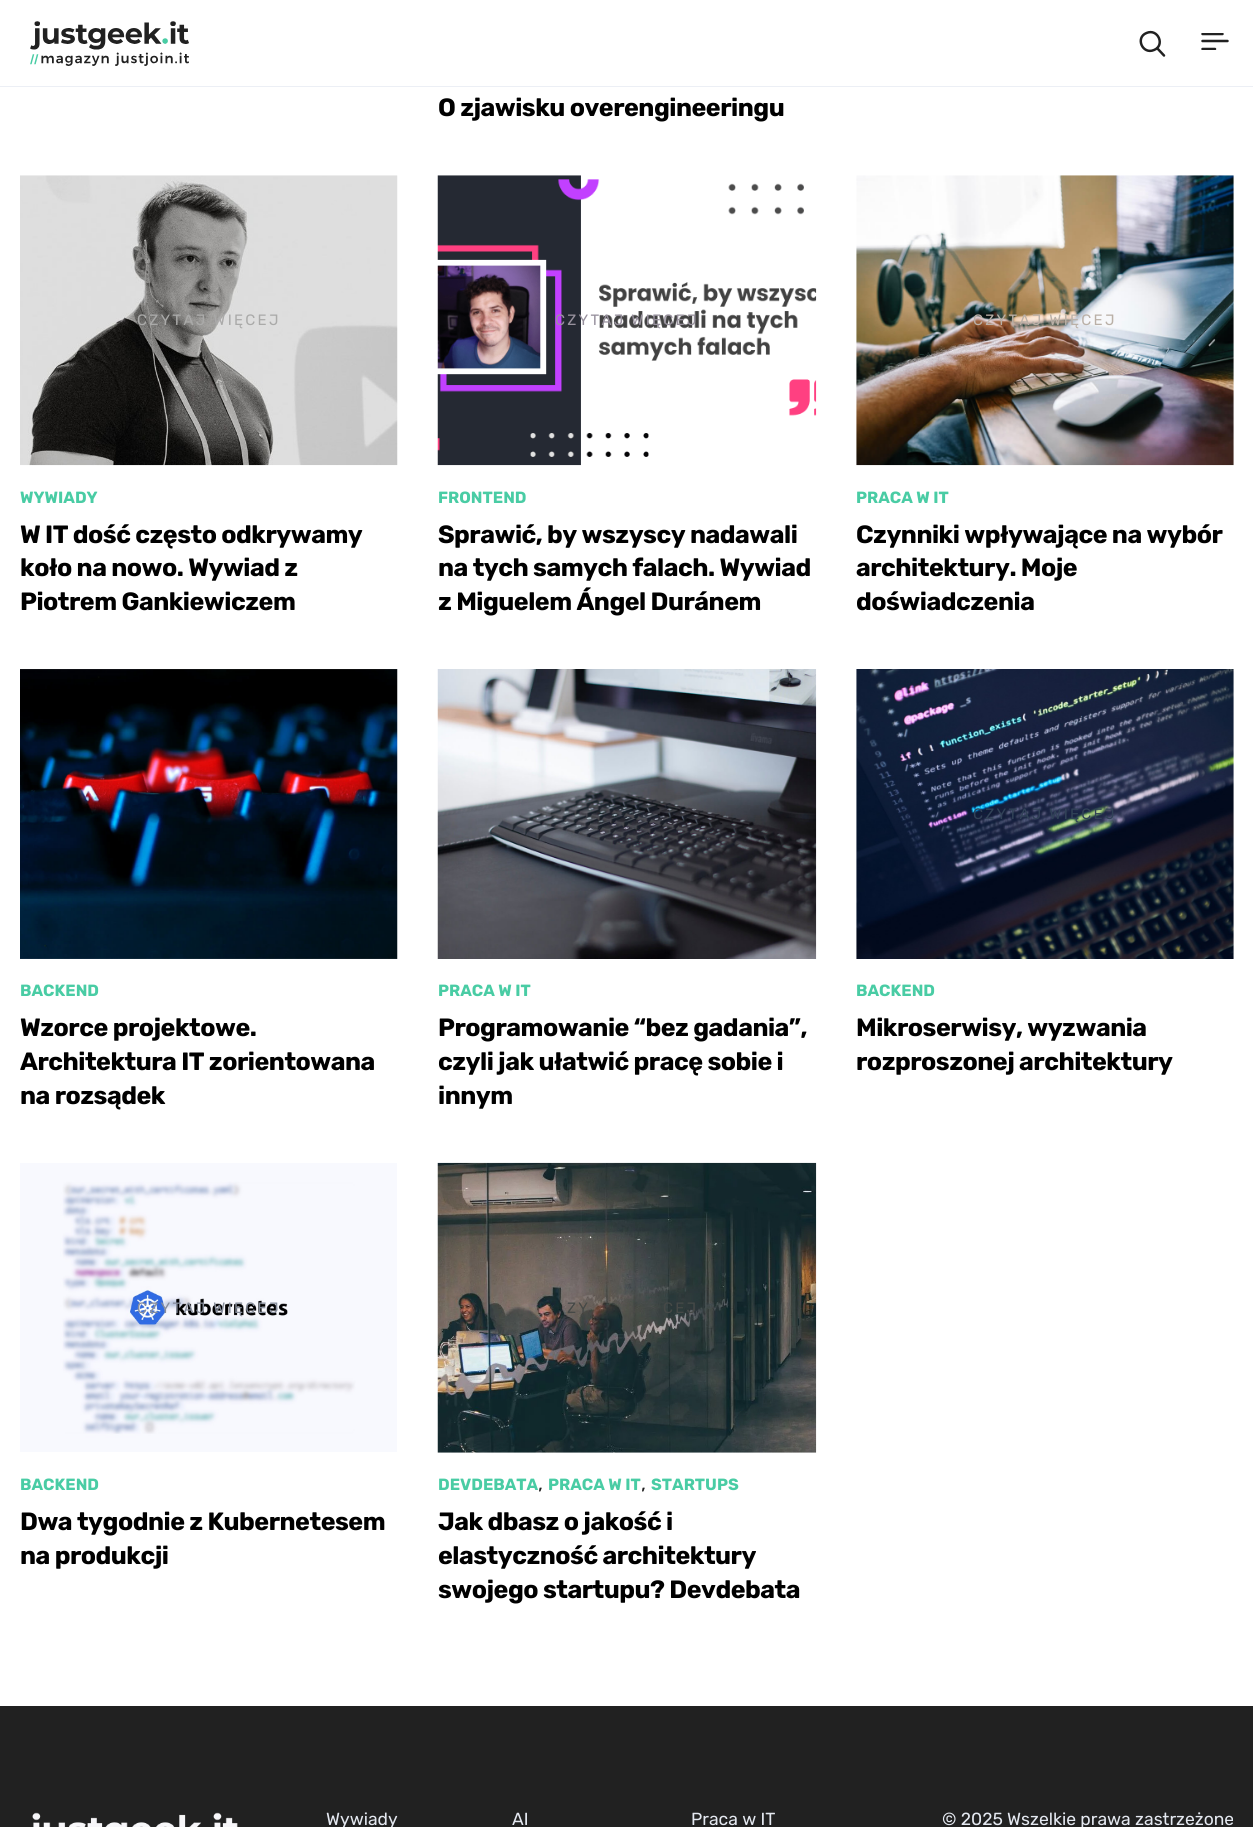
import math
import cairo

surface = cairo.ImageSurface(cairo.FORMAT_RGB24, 1253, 1827)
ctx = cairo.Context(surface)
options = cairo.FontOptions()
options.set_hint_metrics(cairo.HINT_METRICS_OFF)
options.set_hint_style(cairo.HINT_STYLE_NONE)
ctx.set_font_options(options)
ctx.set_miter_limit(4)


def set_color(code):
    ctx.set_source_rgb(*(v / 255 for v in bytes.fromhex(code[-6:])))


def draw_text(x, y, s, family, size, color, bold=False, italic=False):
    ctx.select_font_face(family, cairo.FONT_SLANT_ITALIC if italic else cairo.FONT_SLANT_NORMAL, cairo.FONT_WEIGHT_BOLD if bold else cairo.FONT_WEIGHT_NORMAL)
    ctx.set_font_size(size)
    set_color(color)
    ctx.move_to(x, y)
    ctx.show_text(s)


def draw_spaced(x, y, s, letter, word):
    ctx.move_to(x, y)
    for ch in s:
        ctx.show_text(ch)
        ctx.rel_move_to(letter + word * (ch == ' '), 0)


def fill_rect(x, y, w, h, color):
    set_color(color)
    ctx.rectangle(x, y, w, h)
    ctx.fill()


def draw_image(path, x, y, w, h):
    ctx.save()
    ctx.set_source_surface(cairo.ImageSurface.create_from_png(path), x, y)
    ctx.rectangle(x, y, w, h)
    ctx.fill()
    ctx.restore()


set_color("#ffffff")
ctx.paint()
fill_rect(0, 86, 1253, 1, "#eceff5")
draw_image("assets/img1.png", 30, 21, 159, 45)
ctx.new_path()
ctx.move_to(1154, 50)
ctx.curve_to(1165.5, 45.5, 1158, 28, 1146.5, 33)
ctx.curve_to(1135, 37.5, 1142.5, 55, 1154, 50)
ctx.close_path()
ctx.move_to(1157, 48)
ctx.line_to(1164, 55.5)
set_color("#212121")
ctx.set_line_width(2.5)
ctx.set_line_cap(cairo.LINE_CAP_ROUND)
ctx.set_line_join(cairo.LINE_JOIN_ROUND)
ctx.stroke()
ctx.save()
ctx.rectangle(1201, 33, 28, 17)
ctx.clip()
ctx.new_path()
ctx.move_to(1202.5, 34)
ctx.line_to(1222.5, 34)
ctx.move_to(1202.5, 41)
ctx.line_to(1227.5, 41)
ctx.move_to(1202.5, 49)
ctx.line_to(1215, 49)
ctx.set_line_join(cairo.LINE_JOIN_MITER)
ctx.stroke()
ctx.restore()
ctx.select_font_face("Rubik", cairo.FONT_SLANT_NORMAL, cairo.FONT_WEIGHT_BOLD)
ctx.set_font_size(25)
set_color("#000000")
draw_spaced(438, 116, "O zjawisku overengineeringu", -0.5, 0)
draw_image("assets/img2.png", 20, 175, 378, 291)
ctx.select_font_face("Rubik")
ctx.set_font_size(15)
set_color("#aaaaa9")
draw_spaced(137, 325, "CZYTAJ WIĘCEJ", 2.25, 0)
draw_text(20, 503, "WYWIADY", "Rubik", 16.25, "#49cca4", bold=True)
ctx.set_font_size(25)
set_color("#000000")
draw_spaced(20, 543, "W IT dość często odkrywamy", -0.5, 0)
draw_spaced(20, 576, "koło na nowo. Wywiad z", -0.5, 0)
draw_spaced(20, 610, "Piotrem Gankiewiczem", -0.5, 0)
draw_image("assets/img3.png", 437, 175, 380, 291)
ctx.select_font_face("Rubik")
ctx.set_font_size(15)
set_color("#98919e")
draw_spaced(555, 325, "CZYTAJ WIĘCEJ", 2.25, 0)
draw_text(438, 503, "FRONTEND", "Rubik", 16.25, "#49cca4", bold=True)
ctx.set_font_size(25)
set_color("#000000")
draw_spaced(438, 543, "Sprawić, by wszyscy nadawali", -0.5, 0)
draw_spaced(438, 576, "na tych samych falach. Wywiad", -0.5, 0)
draw_spaced(438, 610, "z Miguelem Ángel Duránem", -0.5, 0)
draw_image("assets/img4.png", 856, 175, 378, 291)
ctx.select_font_face("Rubik")
ctx.set_font_size(15)
set_color("#bab0a7")
draw_spaced(973, 325, "CZYTAJ WIĘCEJ", 2.25, 0)
draw_text(856, 503, "PRACA W IT", "Rubik", 16.25, "#49cca4", bold=True)
ctx.set_font_size(25)
set_color("#000000")
draw_spaced(856, 543, "Czynniki wpływające na wybór", -0.5, 0)
draw_spaced(856, 576, "architektury. Moje", -0.5, 0)
draw_spaced(856, 610, "doświadczenia", -0.5, 0)
draw_image("assets/img5.png", 20, 669, 378, 290)
draw_text(20, 996, "BACKEND", "Rubik", 16.25, "#49cca4", bold=True)
ctx.set_font_size(25)
set_color("#000000")
draw_spaced(20, 1036, "Wzorce projektowe.", -0.5, 0)
draw_spaced(20, 1070, "Architektura IT zorientowana", -0.5, 0)
draw_spaced(20, 1104, "na rozsądek", -0.5, 0)
draw_image("assets/img6.png", 437, 669, 380, 290)
draw_text(438, 996, "PRACA W IT", "Rubik", 16.25, "#49cca4", bold=True)
ctx.set_font_size(25)
set_color("#000000")
draw_spaced(438, 1036, "Programowanie “bez gadania”,", -0.5, 0)
draw_spaced(438, 1070, "czyli jak ułatwić pracę sobie i", -0.5, 0)
draw_spaced(438, 1104, "innym", -0.5, 0)
draw_image("assets/img7.png", 856, 669, 378, 290)
ctx.select_font_face("Rubik")
ctx.set_font_size(15)
set_color("#314257")
draw_spaced(973, 819, "CZYTAJ WIĘCEJ", 2.25, 0)
draw_text(856, 996, "BACKEND", "Rubik", 16.25, "#49cca4", bold=True)
ctx.set_font_size(25)
set_color("#000000")
draw_spaced(856, 1036, "Mikroserwisy, wyzwania", -0.5, 0)
draw_spaced(856, 1070, "rozproszonej architektury", -0.5, 0)
draw_image("assets/img8.png", 20, 1163, 377, 289)
ctx.select_font_face("Rubik")
ctx.set_font_size(15)
set_color("#878e9c")
draw_spaced(137, 1313, "CZYTAJ WIĘCEJ", 2.25, 0)
draw_text(20, 1490, "BACKEND", "Rubik", 16.25, "#49cca4", bold=True)
ctx.set_font_size(25)
set_color("#000000")
draw_spaced(20, 1530, "Dwa tygodnie z Kubernetesem", -0.5, 0)
draw_spaced(20, 1564, "na produkcji", -0.5, 0)
draw_image("assets/img9.png", 437, 1162, 380, 291)
ctx.select_font_face("Rubik")
ctx.set_font_size(15)
set_color("#464947")
draw_spaced(567, 1313, "ZY", 2.25, 0)
draw_spaced(663, 1313, "CEJ", 2.25, 0)
draw_text(438, 1490, "DEVDEBATA", "Rubik", 16.25, "#49cca4", bold=True)
draw_text(538, 1490, ",", "Rubik", 20, "#212121")
draw_text(548, 1490, "PRACA W IT", "Rubik", 16.25, "#49cca4", bold=True)
draw_text(641, 1490, ",", "Rubik", 20, "#212121")
draw_text(651, 1490, "STARTUPS", "Rubik", 16.25, "#49cca4", bold=True)
ctx.set_font_size(25)
set_color("#000000")
draw_spaced(438, 1530, "Jak dbasz o jakość i", -0.5, 0)
draw_spaced(438, 1564, "elastyczność architektury", -0.5, 0)
draw_spaced(438, 1598, "swojego startupu? Devdebata", -0.5, 0)
fill_rect(0, 1706, 1253, 121, "#212121")
draw_image("assets/img10.png", 32, 1812, 206, 15)
draw_text(326, 1825, "Wywiady", "Rubik", 17.5, "#e4e8f0")
draw_text(512, 1825, "AI", "Rubik", 17.5, "#e4e8f0")
draw_text(691, 1825, "Praca w IT", "Rubik", 17.5, "#e4e8f0")
draw_text(942, 1825, "© 2025 Wszelkie prawa zastrzeżone", "Rubik", 17.5, "#e4e8f0")
surface.write_to_png("output.png")
